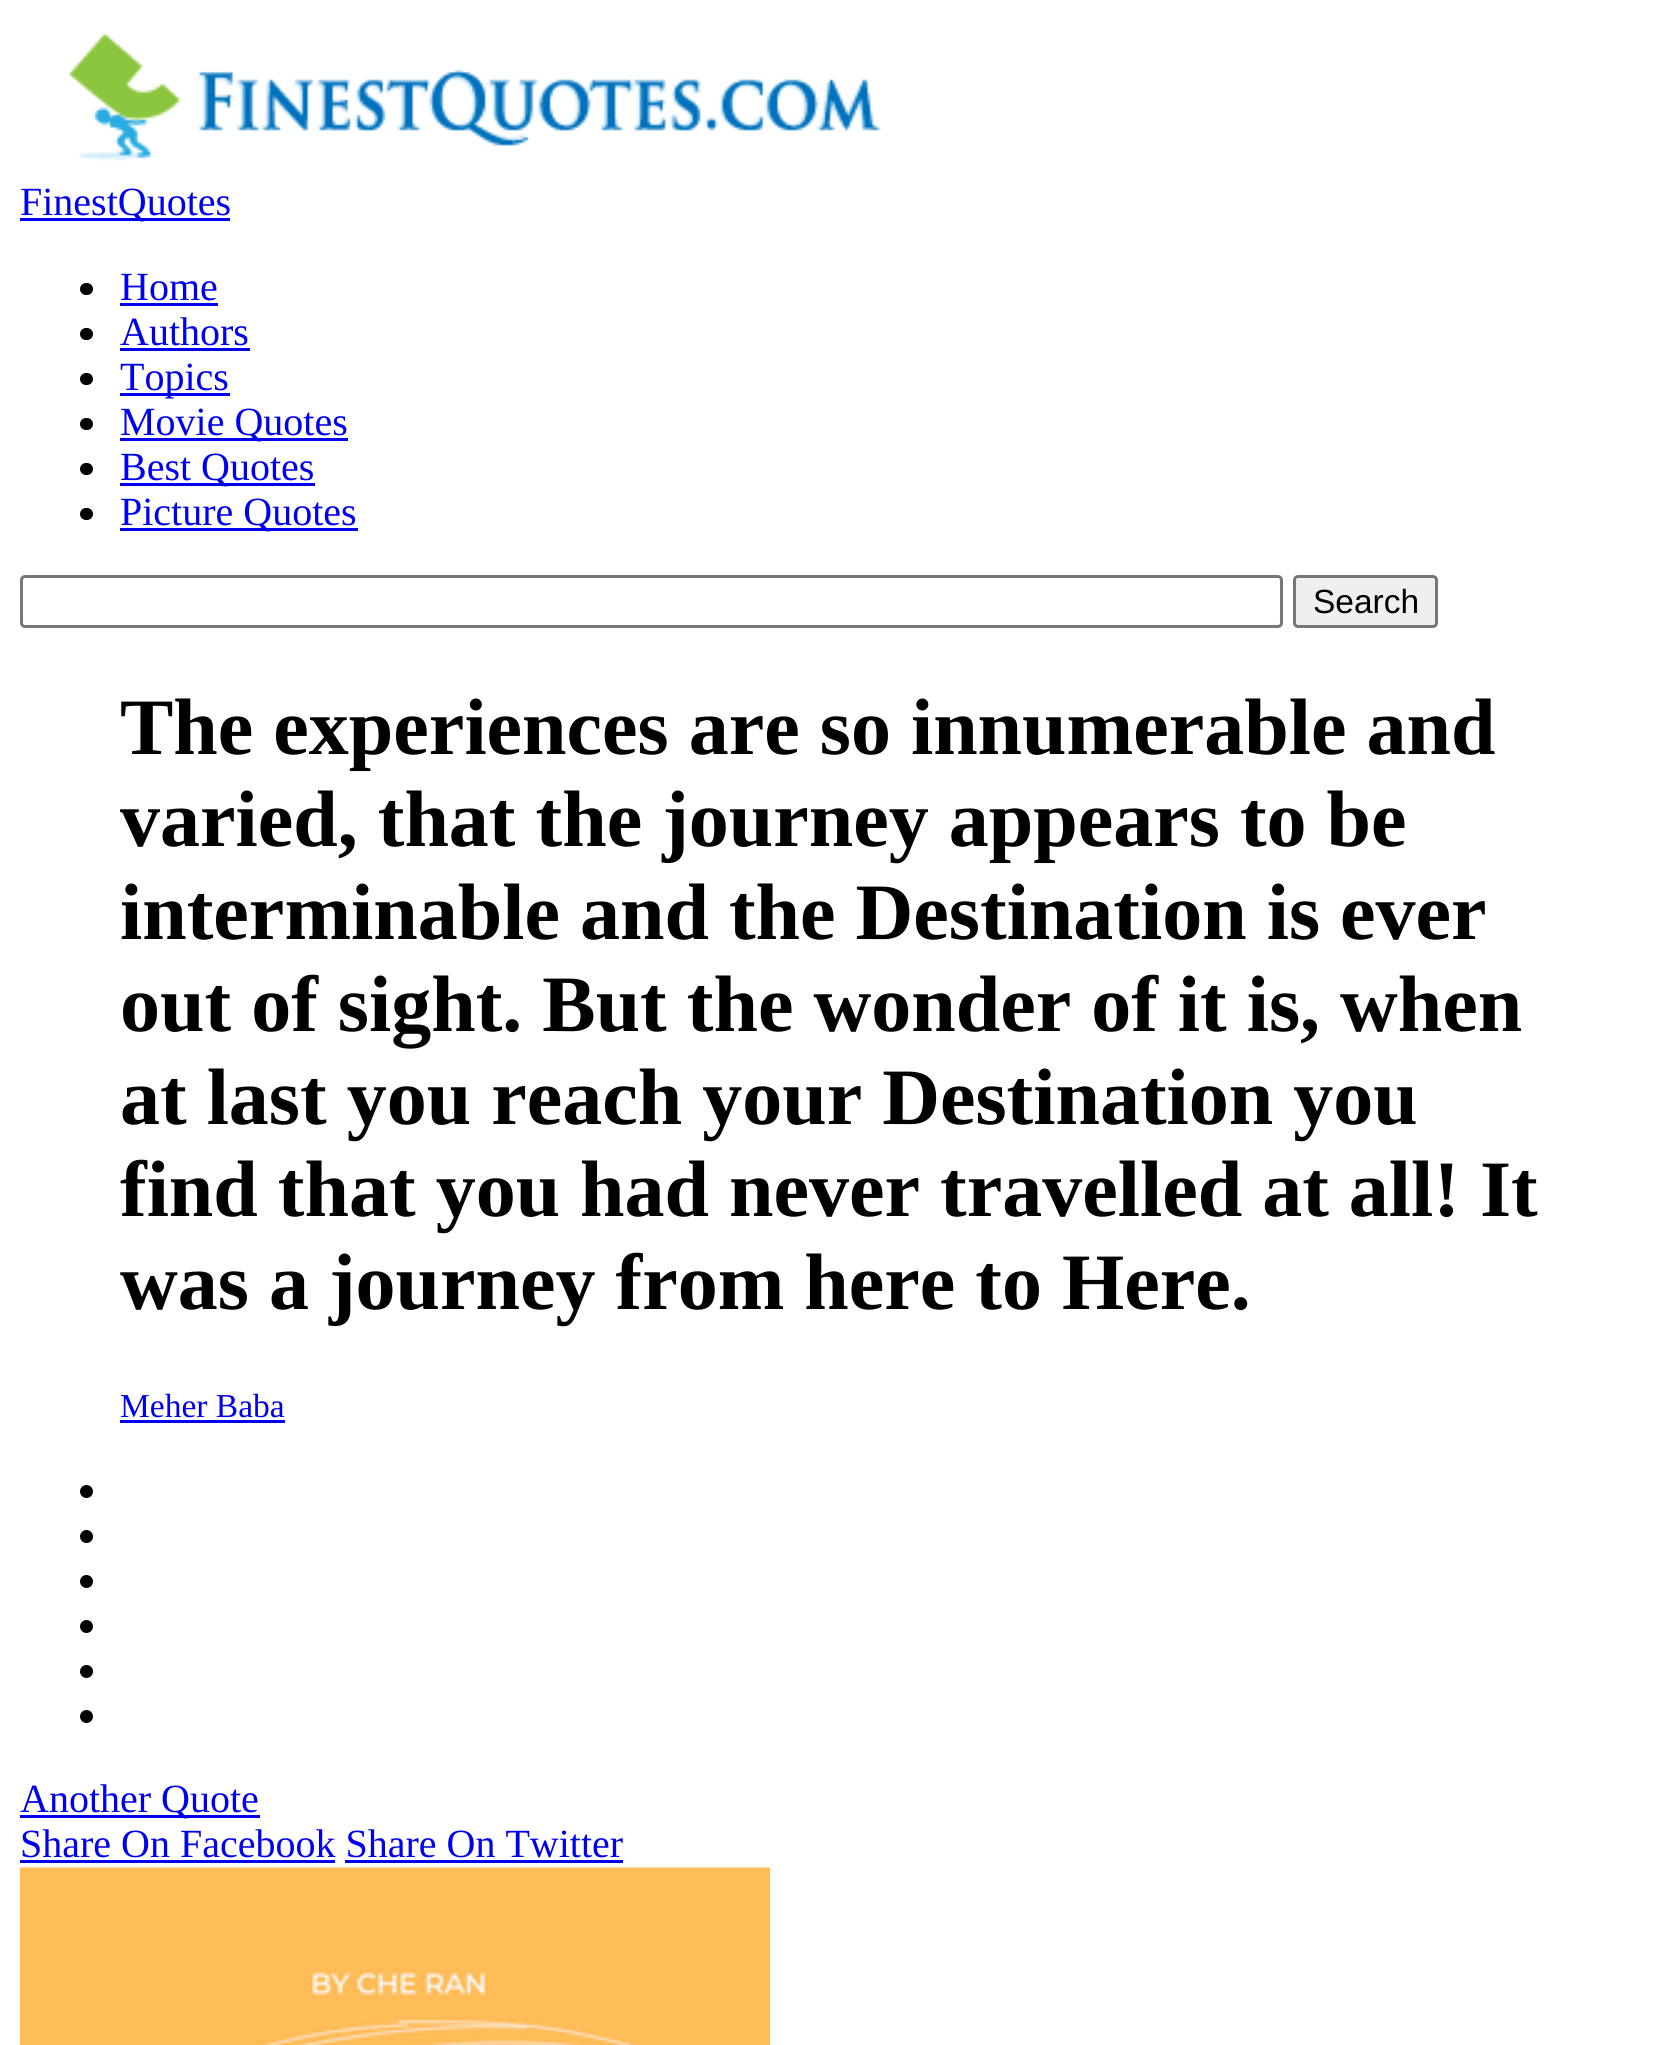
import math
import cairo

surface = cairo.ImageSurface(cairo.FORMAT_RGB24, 1662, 2045)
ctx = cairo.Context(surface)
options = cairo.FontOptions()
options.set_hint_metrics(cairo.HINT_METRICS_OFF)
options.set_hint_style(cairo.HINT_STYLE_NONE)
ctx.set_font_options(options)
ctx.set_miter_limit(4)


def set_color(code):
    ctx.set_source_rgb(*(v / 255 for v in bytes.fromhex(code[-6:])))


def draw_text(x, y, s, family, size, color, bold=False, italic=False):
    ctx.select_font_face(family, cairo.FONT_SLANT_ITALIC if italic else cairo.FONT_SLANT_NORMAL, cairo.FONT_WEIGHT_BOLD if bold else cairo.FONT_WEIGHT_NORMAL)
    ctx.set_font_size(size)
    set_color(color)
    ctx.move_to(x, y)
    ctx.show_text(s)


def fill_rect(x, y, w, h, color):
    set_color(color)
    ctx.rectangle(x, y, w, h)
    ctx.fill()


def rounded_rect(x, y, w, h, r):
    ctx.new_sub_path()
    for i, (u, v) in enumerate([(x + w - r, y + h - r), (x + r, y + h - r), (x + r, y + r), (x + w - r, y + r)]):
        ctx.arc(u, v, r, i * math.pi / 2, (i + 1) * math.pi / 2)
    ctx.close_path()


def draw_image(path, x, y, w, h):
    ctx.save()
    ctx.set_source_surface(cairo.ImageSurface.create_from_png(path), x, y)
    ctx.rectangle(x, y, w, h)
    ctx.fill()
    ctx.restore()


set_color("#ffffff")
ctx.paint()
draw_image("assets/img1.png", 69, 32, 812, 129)
fill_rect(20, 218, 210, 3, "#0000ee")
draw_text(20, 215, "FinestQuotes", "Liberation Serif", 40, "#0000ee")
set_color("#000000")
rounded_rect(80, 283, 13, 12, 6)
ctx.fill()
draw_text(120, 300, "Home", "Liberation Serif", 40, "#0000ee")
fill_rect(120, 303, 98, 3, "#0000ee")
set_color("#000000")
rounded_rect(80, 328, 13, 12, 6)
ctx.fill()
draw_text(120, 345, "Authors", "Liberation Serif", 40, "#0000ee")
fill_rect(120, 348, 130, 3, "#0000ee")
set_color("#000000")
rounded_rect(80, 373, 13, 12, 6)
ctx.fill()
fill_rect(120, 393, 110, 3, "#0000ee")
draw_text(120, 390, "Topics", "Liberation Serif", 40, "#0000ee")
set_color("#000000")
rounded_rect(80, 418, 13, 12, 6)
ctx.fill()
fill_rect(120, 438, 228, 3, "#0000ee")
draw_text(120, 435, "Movie Quotes", "Liberation Serif", 40, "#0000ee")
set_color("#000000")
rounded_rect(80, 463, 13, 12, 6)
ctx.fill()
fill_rect(120, 483, 195, 3, "#0000ee")
draw_text(120, 480, "Best Quotes", "Liberation Serif", 40, "#0000ee")
set_color("#000000")
rounded_rect(80, 508, 13, 12, 6)
ctx.fill()
fill_rect(120, 528, 238, 3, "#0000ee")
draw_text(120, 525, "Picture Quotes", "Liberation Serif", 40, "#0000ee")
rounded_rect(21.5, 576.5, 1260, 50, 3.5)
set_color("#767676")
ctx.set_line_width(3)
ctx.stroke()
set_color("#efefef")
rounded_rect(1294.5, 576.5, 142, 50, 3.5)
ctx.fill_preserve()
set_color("#767676")
ctx.stroke()
draw_text(1313, 613, "Search", "Liberation Sans", 33.5, "#000000")
draw_text(120, 754, "The experiences are so innumerable and", "Liberation Serif", 80, "#000000", bold=True)
draw_text(120, 846, "varied, that the journey appears to be", "Liberation Serif", 80, "#000000", bold=True)
draw_text(120, 939, "interminable and the Destination is ever", "Liberation Serif", 80, "#000000", bold=True)
draw_text(120, 1031, "out of sight. But the wonder of it is, when", "Liberation Serif", 80, "#000000", bold=True)
draw_text(120, 1124, "at last you reach your Destination you", "Liberation Serif", 80, "#000000", bold=True)
draw_text(120, 1216, "find that you had never travelled at all! It", "Liberation Serif", 80, "#000000", bold=True)
draw_text(120, 1309, "was a journey from here to Here.", "Liberation Serif", 80, "#000000", bold=True)
draw_text(120, 1417, "Meher Baba", "Liberation Serif", 33.5, "#0000ee")
fill_rect(120, 1420, 165, 3, "#0000ee")
set_color("#000000")
ctx.new_path()
ctx.arc(86.5, 1491.5, 6.5, 0, 2 * math.pi)
ctx.fill()
ctx.arc(86.5, 1536.5, 6.5, 0, 2 * math.pi)
ctx.fill()
ctx.arc(86.5, 1581.5, 6.5, 0, 2 * math.pi)
ctx.fill()
ctx.arc(86.5, 1626.5, 6.5, 0, 2 * math.pi)
ctx.fill()
ctx.arc(86.5, 1671.5, 6.5, 0, 2 * math.pi)
ctx.fill()
ctx.arc(86.5, 1716.5, 6.5, 0, 2 * math.pi)
ctx.fill()
fill_rect(20, 1815, 240, 3, "#0000ee")
draw_text(20, 1812, "Another Quote", "Liberation Serif", 40, "#0000ee")
draw_text(20, 1857, "Share On Facebook Share On Twitter", "Liberation Serif", 40, "#0000ee")
fill_rect(20, 1860, 315, 3, "#0000ee")
fill_rect(345, 1860, 278, 3, "#0000ee")
draw_image("assets/img2.png", 20, 1867, 750, 178)
surface.write_to_png("output.png")
